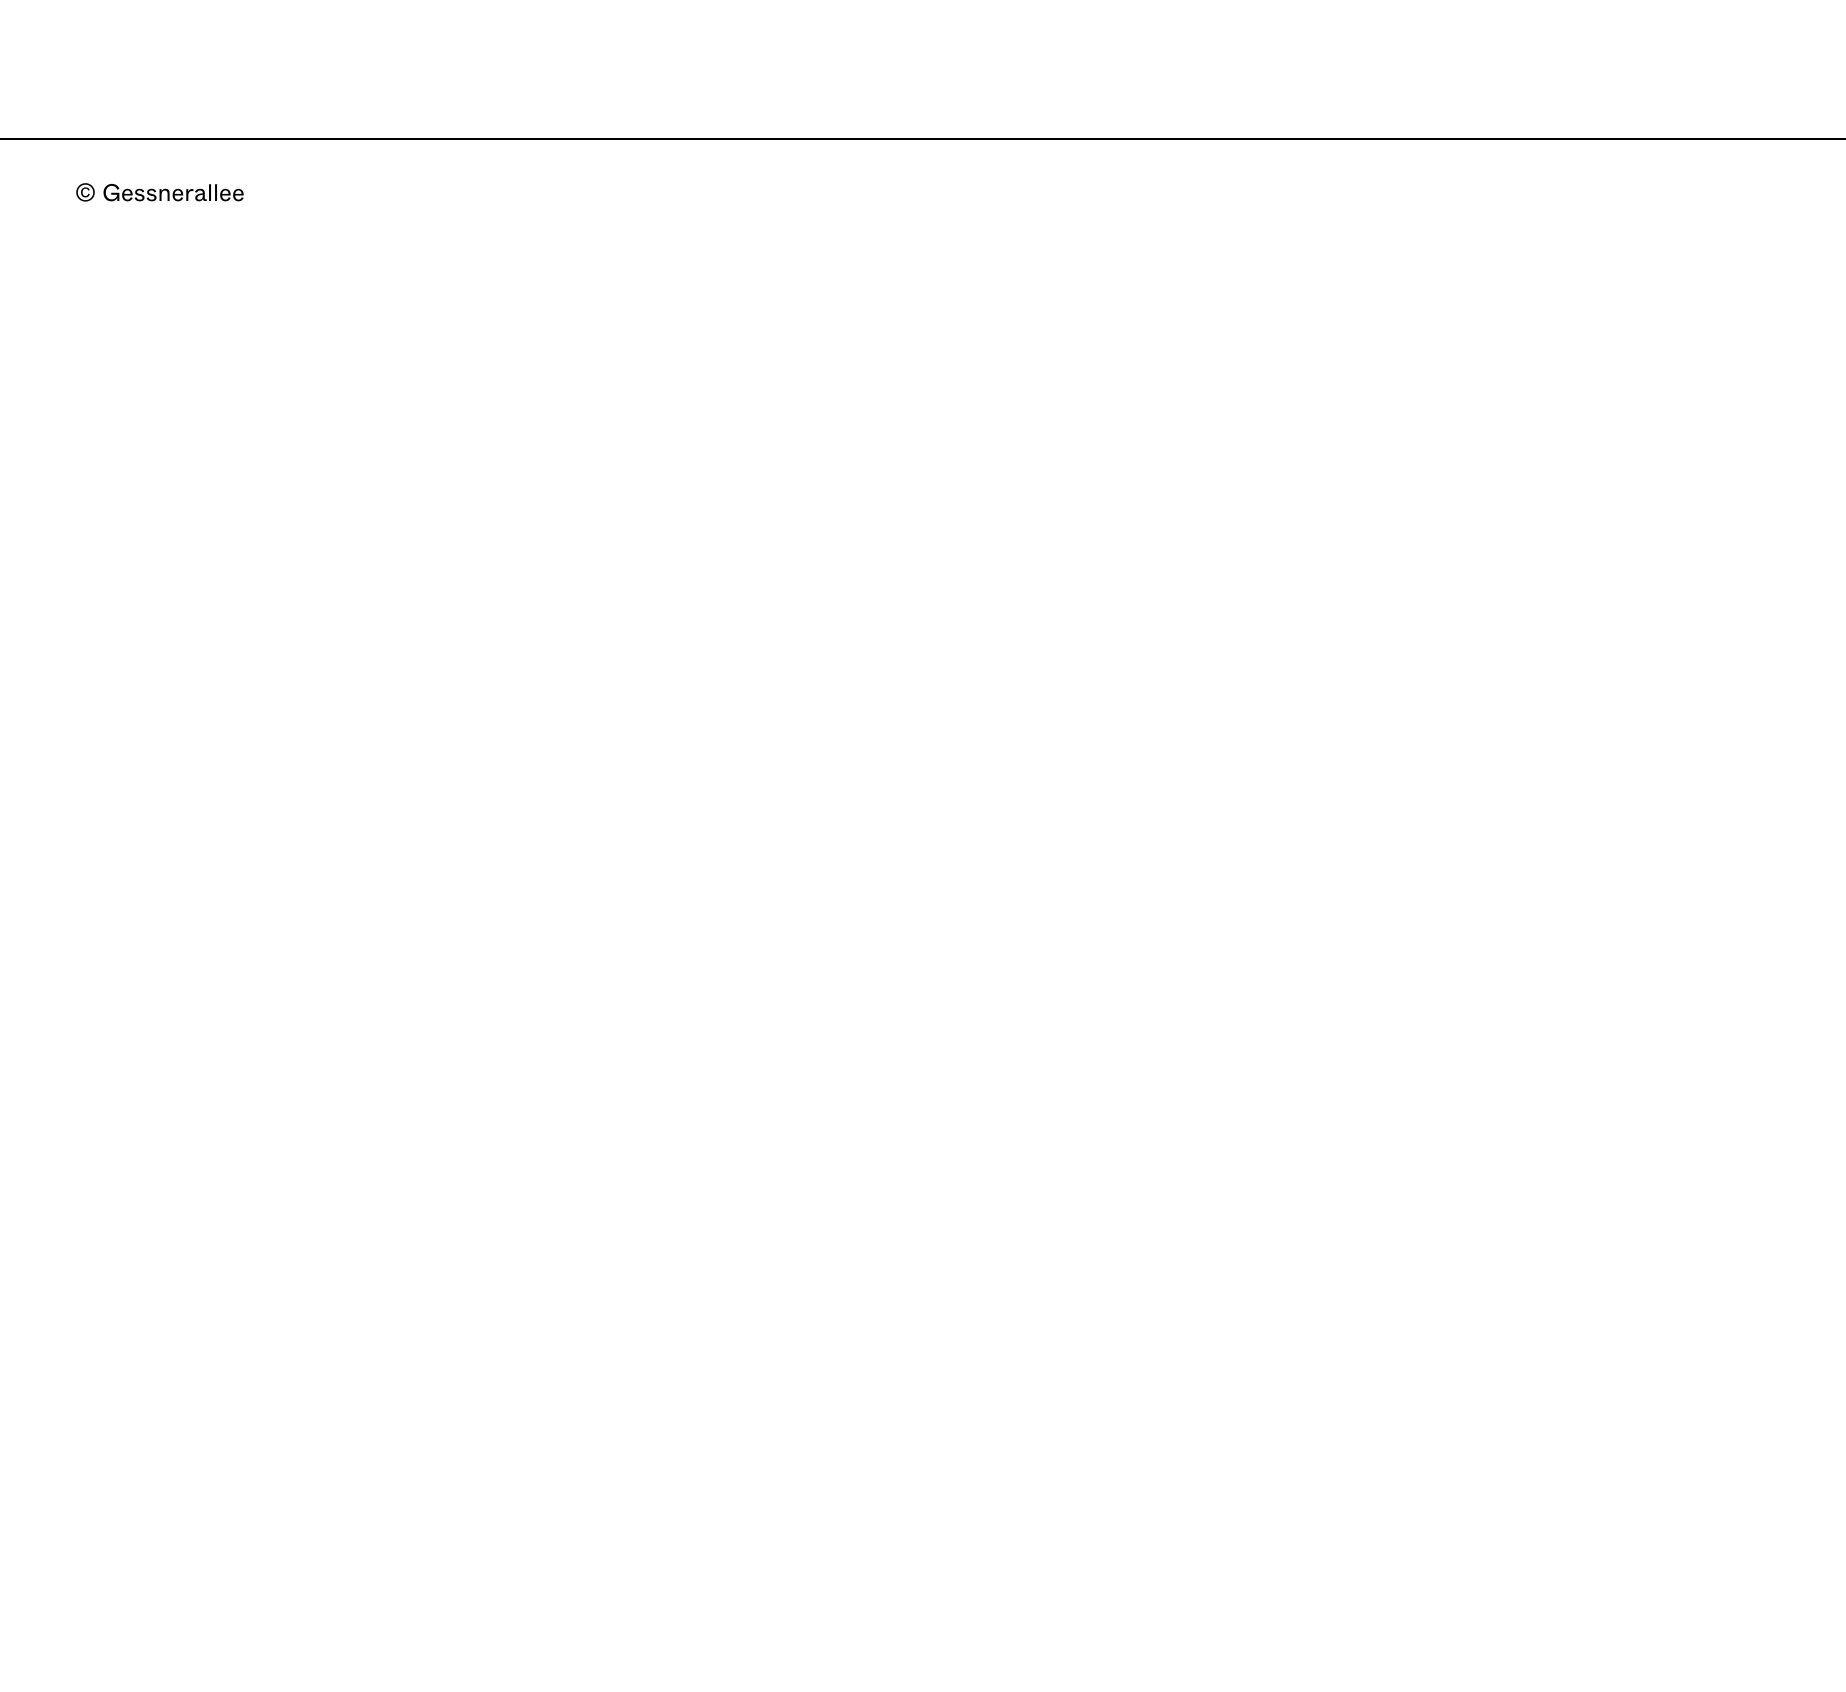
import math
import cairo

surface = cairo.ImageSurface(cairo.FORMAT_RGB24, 1846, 1692)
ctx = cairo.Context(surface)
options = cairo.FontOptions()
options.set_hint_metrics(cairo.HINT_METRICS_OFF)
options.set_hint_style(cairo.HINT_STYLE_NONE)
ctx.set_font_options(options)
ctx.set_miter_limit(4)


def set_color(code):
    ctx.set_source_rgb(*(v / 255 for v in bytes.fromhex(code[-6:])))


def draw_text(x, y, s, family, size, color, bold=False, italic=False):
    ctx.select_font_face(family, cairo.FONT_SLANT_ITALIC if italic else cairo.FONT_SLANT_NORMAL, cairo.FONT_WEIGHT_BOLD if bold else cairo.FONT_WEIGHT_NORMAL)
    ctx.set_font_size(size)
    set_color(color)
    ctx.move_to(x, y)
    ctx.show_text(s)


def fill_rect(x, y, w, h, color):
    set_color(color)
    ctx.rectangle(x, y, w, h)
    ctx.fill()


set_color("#ffffff")
ctx.paint()
fill_rect(0, 138, 1846, 2, "#000000")
draw_text(75, 201, "© Gessnerallee", "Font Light", 24, "#000000")
surface.write_to_png("output.png")
